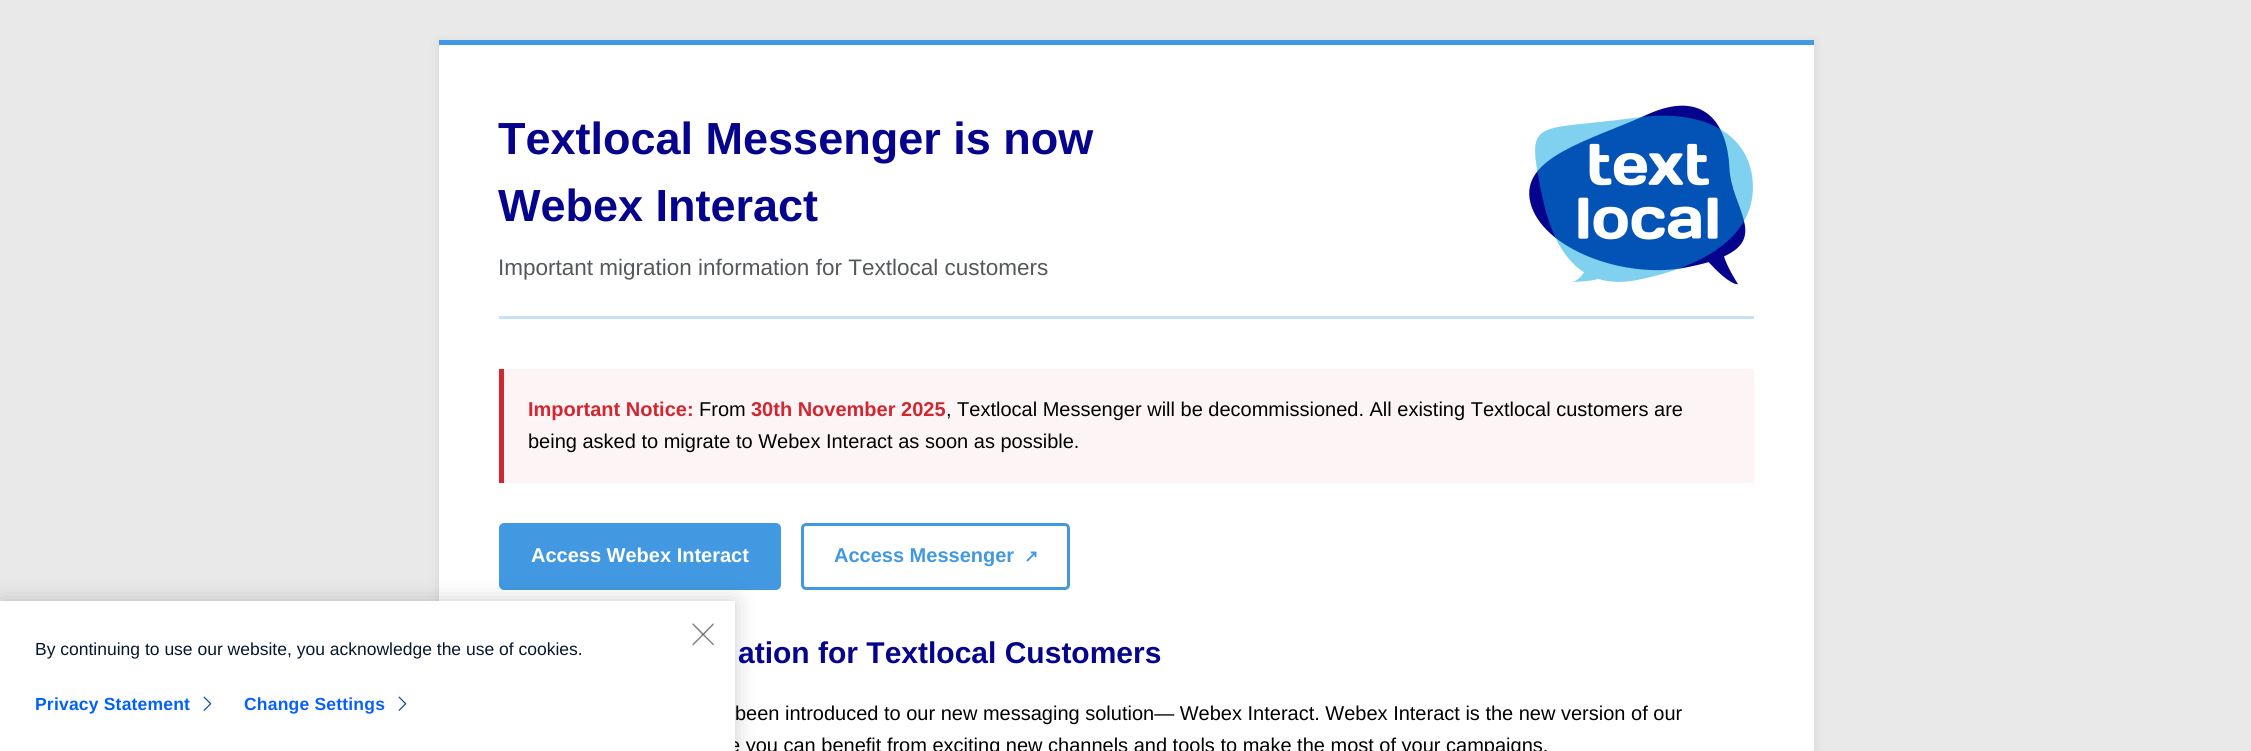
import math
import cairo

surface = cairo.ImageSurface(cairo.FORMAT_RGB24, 2251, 751)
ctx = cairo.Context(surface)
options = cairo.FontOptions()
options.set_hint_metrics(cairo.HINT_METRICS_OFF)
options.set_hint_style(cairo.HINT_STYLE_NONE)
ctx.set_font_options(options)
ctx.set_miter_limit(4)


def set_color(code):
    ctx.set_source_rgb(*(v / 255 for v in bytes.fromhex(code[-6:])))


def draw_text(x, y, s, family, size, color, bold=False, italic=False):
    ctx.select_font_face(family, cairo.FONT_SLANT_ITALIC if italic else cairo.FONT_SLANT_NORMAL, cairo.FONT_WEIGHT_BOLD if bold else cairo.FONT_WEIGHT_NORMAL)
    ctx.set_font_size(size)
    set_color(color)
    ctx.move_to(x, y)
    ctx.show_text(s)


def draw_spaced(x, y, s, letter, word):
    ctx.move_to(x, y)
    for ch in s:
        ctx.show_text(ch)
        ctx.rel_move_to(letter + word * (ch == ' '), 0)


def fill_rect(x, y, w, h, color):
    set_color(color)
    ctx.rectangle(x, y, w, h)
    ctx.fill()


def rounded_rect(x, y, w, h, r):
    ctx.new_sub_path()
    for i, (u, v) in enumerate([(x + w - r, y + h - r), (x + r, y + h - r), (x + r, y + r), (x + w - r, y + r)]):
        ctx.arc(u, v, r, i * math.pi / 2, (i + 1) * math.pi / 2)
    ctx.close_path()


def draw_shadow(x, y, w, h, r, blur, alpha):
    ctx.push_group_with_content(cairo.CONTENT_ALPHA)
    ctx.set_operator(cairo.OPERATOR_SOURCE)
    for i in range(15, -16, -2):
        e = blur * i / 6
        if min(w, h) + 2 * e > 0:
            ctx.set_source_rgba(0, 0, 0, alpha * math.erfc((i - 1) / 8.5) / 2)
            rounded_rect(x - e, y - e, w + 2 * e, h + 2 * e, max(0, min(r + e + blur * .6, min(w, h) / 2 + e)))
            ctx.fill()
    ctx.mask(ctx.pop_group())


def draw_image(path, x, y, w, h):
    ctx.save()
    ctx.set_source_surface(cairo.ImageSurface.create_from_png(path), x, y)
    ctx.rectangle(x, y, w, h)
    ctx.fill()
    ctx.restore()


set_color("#e9e9e9")
ctx.paint()
set_color("#000000")
draw_shadow(439, 43, 1375, 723, 0, 5, 0.1)
fill_rect(439, 45, 1375, 706, "#ffffff")
set_color("#4299e1")
rounded_rect(500.5, 524.5, 279, 64, 3.5)
ctx.fill_preserve()
ctx.set_line_width(3)
ctx.stroke()
set_color("#000000")
draw_shadow(0, 601, 735, 150, 0, 11, 0.2)
draw_text(729, 752, "e you can benefit from exciting new channels and tools to make the most of your campaigns.", "Liberation Sans", 20, "#000000")
fill_rect(0, 601, 735, 150, "#ffffff")
draw_image("assets/img1.png", 692, 623, 22, 23)
draw_text(35, 655, "By continuing to use our website, you acknowledge the use of cookies.", "Liberation Sans", 17.5, "#07182d")
ctx.select_font_face("Liberation Sans", cairo.FONT_SLANT_NORMAL, cairo.FONT_WEIGHT_BOLD)
set_color("#0060ff")
draw_spaced(35, 710, "Privacy Statement", 0.2, 0)
draw_image("assets/img2.png", 203, 696, 9, 15)
set_color("#0a60ff")
draw_spaced(244, 710, "Change Settings", 0.2, 0)
draw_image("assets/img2.png", 398, 696, 9, 15)
fill_rect(439, 40, 1375, 5, "#4299e1")
fill_rect(499, 316, 1255, 3, "#c6e0f6")
draw_text(498, 154, "Textlocal Messenger is now", "Liberation Sans", 45, "#06038d", bold=True)
draw_text(498, 221, "Webex Interact", "Liberation Sans", 45, "#06038d", bold=True)
draw_image("assets/img3.png", 1529, 105, 224, 180)
draw_text(498, 275, "Important migration information for Textlocal customers", "Liberation Sans", 22.5, "#54585a")
fill_rect(504, 369, 1250, 114, "#fdf5f5")
fill_rect(499, 369, 5, 114, "#d22630")
draw_text(528, 416, "Important Notice:", "Liberation Sans", 20, "#d22630", bold=True)
draw_text(699, 416, "From", "Liberation Sans", 20, "#000000")
draw_text(751, 416, "30th November 2025", "Liberation Sans", 20, "#d22630", bold=True)
draw_text(946, 416, ", Textlocal Messenger will be decommissioned. All existing Textlocal customers are", "Liberation Sans", 20, "#000000")
draw_text(528, 448, "being asked to migrate to Webex Interact as soon as possible.", "Liberation Sans", 20, "#000000")
draw_text(531, 562, "Access Webex Interact", "Liberation Sans", 20, "#ffffff", bold=True)
rounded_rect(802.5, 524.5, 266, 64, 3.5)
set_color("#4299e1")
ctx.stroke()
draw_text(834, 562, "Access Messenger", "Liberation Sans", 20, "#4299e1", bold=True)
draw_text(1024, 562, "↗", "DejaVu Sans", 17, "#4299e1", bold=True)
draw_text(738, 663, "ation for Textlocal Customers", "Liberation Sans", 30, "#06038d", bold=True)
draw_text(735, 720, "been introduced to our new messaging solution— Webex Interact. Webex Interact is the new version of our", "Liberation Sans", 20, "#000000")
surface.write_to_png("output.png")
